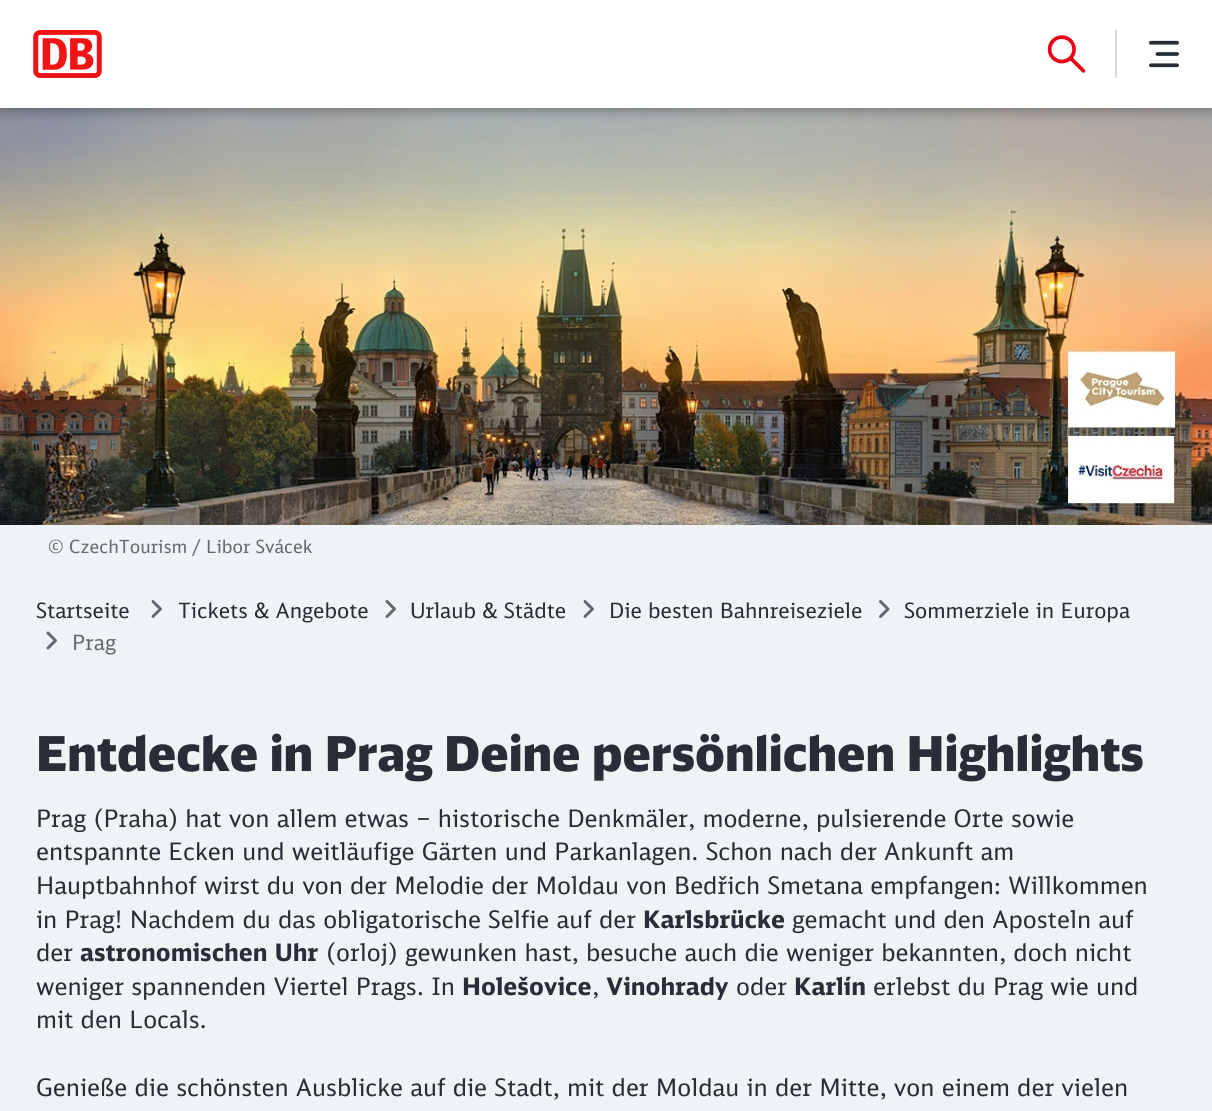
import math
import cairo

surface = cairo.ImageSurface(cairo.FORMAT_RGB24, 1212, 1111)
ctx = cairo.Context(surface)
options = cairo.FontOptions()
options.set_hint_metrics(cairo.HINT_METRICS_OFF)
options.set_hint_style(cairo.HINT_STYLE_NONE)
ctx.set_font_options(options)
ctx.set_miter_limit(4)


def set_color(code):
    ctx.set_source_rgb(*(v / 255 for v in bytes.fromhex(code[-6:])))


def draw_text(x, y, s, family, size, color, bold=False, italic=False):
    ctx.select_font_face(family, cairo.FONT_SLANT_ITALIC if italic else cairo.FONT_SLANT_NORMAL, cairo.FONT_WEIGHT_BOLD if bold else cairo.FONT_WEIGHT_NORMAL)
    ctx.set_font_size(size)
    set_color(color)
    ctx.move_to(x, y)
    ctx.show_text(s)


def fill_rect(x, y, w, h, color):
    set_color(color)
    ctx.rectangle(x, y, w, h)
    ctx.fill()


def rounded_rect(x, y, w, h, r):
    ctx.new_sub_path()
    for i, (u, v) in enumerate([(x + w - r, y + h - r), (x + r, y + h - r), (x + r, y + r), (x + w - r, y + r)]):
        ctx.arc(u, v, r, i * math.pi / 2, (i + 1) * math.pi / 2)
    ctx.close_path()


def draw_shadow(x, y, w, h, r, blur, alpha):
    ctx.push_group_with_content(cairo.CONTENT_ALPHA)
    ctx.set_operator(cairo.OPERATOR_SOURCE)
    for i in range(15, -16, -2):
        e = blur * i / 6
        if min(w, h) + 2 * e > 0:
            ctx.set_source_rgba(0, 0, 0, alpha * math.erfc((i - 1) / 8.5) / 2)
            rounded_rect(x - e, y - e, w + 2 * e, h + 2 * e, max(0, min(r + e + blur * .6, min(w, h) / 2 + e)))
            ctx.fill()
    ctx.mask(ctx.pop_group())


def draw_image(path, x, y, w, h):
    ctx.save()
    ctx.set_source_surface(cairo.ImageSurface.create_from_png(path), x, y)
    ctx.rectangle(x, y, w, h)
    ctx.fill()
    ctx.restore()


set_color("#f0f3f5")
ctx.paint()
draw_image("assets/img4.png", 0, 108, 1212, 417)
set_color("#000000")
draw_shadow(0, 3, 1212, 108, 0, 6, 0.3)
fill_rect(0, 0, 1212, 108, "#ffffff")
draw_image("assets/img1.png", 33, 30, 69, 48)
draw_image("assets/img2.png", 1047, 35, 39, 38)
fill_rect(1115, 30, 2, 48, "#d7dce1")
draw_image("assets/img3.png", 1149, 40, 30, 28)
draw_text(48, 553, "© CzechTourism / Libor Svácek", "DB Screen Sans", 18, "#646973")
draw_text(36, 618, "Startseite", "DB Screen Sans", 21, "#282d37")
draw_image("assets/img5.png", 151, 600, 11, 18)
draw_text(178, 618, "Tickets & Angebote", "DB Screen Sans", 21, "#282d37")
draw_image("assets/img5.png", 385, 600, 11, 18)
draw_text(410, 618, "Urlaub & Städte", "DB Screen Sans", 21, "#282d37")
draw_image("assets/img5.png", 583, 600, 11, 18)
draw_text(609, 618, "Die besten Bahnreiseziele", "DB Screen Sans", 21, "#282d37")
draw_image("assets/img6.png", 879, 600, 11, 18)
draw_text(904, 618, "Sommerziele in Europa", "DB Screen Sans", 21, "#282d37")
draw_image("assets/img7.png", 46, 631, 11, 19)
draw_text(72, 650, "Prag", "DB Screen Sans", 21, "#646973")
draw_text(36, 771, "Entdecke in Prag Deine persönlichen Highlights", "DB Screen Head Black", 48, "#282d37")
draw_text(36, 827, "Prag (Praha) hat von allem etwas – historische Denkmäler, moderne, pulsierende Orte sowie", "DB Screen Sans", 24, "#282d37")
draw_text(36, 860, "entspannte Ecken und weitläufige Gärten und Parkanlagen. Schon nach der Ankunft am", "DB Screen Sans", 24, "#282d37")
draw_text(36, 894, "Hauptbahnhof wirst du von der Melodie der Moldau von Bedřich Smetana empfangen: Willkommen", "DB Screen Sans", 24, "#282d37")
draw_text(36, 928, "in Prag! Nachdem du das obligatorische Selfie auf der", "DB Screen Sans", 24, "#282d37")
draw_text(643, 928, "Karlsbrücke", "DB Screen Sans", 24, "#282d37", bold=True)
draw_text(792, 928, "gemacht und den Aposteln auf", "DB Screen Sans", 24, "#282d37")
draw_text(36, 961, "der", "DB Screen Sans", 24, "#282d37")
draw_text(80, 961, "astronomischen Uhr", "DB Screen Sans", 24, "#282d37", bold=True)
draw_text(326, 961, "(orloj) gewunken hast, besuche auch die weniger bekannten, doch nicht", "DB Screen Sans", 24, "#282d37")
draw_text(36, 995, "weniger spannenden Viertel Prags. In", "DB Screen Sans", 24, "#282d37")
draw_text(462, 995, "Holešovice", "DB Screen Sans", 24, "#282d37", bold=True)
draw_text(592, 995, ",", "DB Screen Sans", 24, "#282d37")
draw_text(606, 995, "Vinohrady", "DB Screen Sans", 24, "#282d37", bold=True)
draw_text(736, 995, "oder", "DB Screen Sans", 24, "#282d37")
draw_text(794, 995, "Karlín", "DB Screen Sans", 24, "#282d37", bold=True)
draw_text(873, 995, "erlebst du Prag wie und", "DB Screen Sans", 24, "#282d37")
draw_text(36, 1028, "mit den Locals.", "DB Screen Sans", 24, "#282d37")
draw_text(36, 1096, "Genieße die schönsten Ausblicke auf die Stadt, mit der Moldau in der Mitte, von einem der vielen", "DB Screen Sans", 24, "#282d37")
surface.write_to_png("output.png")
